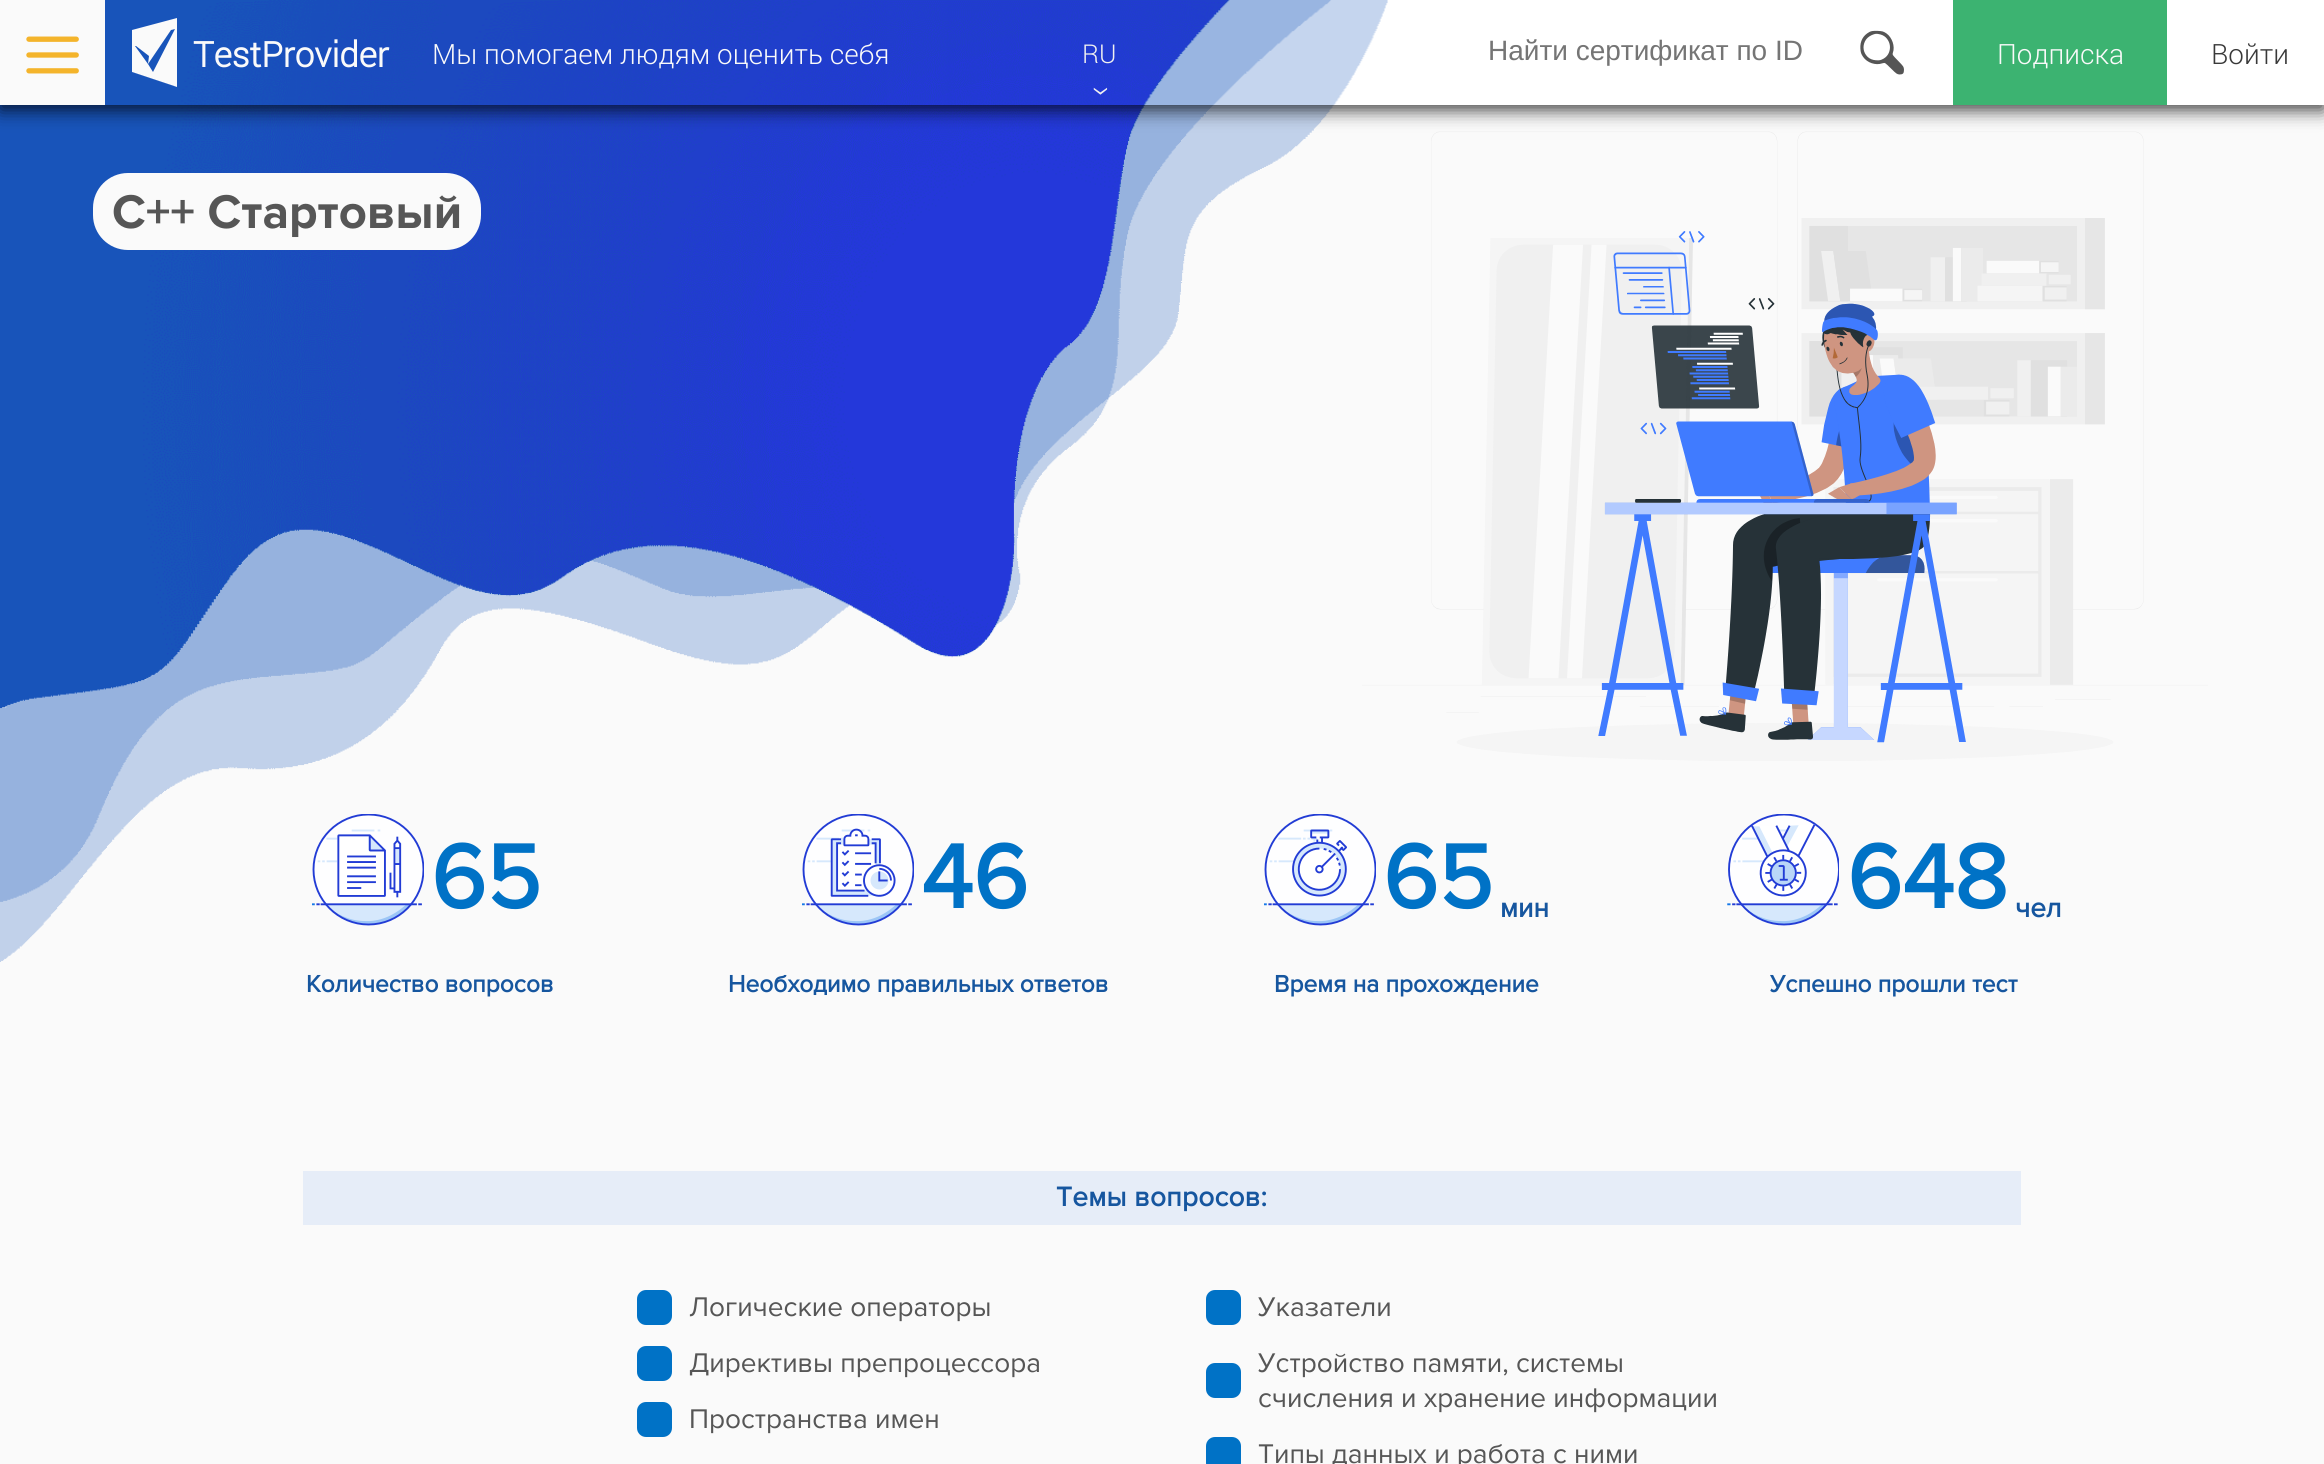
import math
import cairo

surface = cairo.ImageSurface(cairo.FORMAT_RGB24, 2324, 1464)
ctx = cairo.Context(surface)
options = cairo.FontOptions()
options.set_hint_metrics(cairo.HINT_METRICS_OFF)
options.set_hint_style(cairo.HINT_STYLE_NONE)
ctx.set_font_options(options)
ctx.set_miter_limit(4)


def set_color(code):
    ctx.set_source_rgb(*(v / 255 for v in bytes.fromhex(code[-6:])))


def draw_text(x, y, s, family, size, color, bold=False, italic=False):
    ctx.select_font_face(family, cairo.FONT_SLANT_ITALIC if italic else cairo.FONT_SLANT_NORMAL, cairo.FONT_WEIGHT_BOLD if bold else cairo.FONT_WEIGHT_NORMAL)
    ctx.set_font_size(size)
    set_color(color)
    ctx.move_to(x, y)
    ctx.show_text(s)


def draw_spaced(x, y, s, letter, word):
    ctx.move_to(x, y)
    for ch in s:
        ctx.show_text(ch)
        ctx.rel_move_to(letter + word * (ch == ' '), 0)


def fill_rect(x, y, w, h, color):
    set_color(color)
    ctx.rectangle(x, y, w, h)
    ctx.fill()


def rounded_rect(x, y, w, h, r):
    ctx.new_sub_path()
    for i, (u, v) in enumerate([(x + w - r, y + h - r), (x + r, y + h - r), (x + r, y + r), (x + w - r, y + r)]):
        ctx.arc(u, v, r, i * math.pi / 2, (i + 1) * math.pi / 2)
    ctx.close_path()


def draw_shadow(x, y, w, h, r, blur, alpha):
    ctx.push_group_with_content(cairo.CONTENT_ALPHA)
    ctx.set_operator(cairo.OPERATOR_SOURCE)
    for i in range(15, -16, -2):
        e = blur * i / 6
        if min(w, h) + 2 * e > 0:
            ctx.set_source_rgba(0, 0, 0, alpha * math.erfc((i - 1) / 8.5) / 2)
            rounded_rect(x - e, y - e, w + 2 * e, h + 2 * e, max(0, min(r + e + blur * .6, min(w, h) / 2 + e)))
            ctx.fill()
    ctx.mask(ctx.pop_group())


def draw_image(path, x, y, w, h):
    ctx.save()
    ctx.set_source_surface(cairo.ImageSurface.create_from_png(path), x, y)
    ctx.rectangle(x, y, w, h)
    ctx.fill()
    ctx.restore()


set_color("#fafafa")
ctx.paint()
draw_image("assets/img4.png", 0, 105, 1334, 857)
draw_image("assets/img5.png", 1362, 131, 846, 630)
set_color("#000000")
draw_shadow(0, 5, 2324, 105, 0, 9, 0.75)
fill_rect(1144, 0, 1180, 105, "#ffffff")
draw_image("assets/img1.png", 105, 0, 1283, 105)
draw_text(1488, 60, "Найти сертификат по ID", "Liberation Sans", 28, "#757575")
draw_image("assets/img2.png", 1860, 30, 44, 45)
fill_rect(1953, 0, 214, 105, "#3cb371")
draw_text(1997, 64, "Подписка", "Roboto Light", 28, "#fafafa")
draw_text(2211, 64, "Войти", "Roboto Light", 28, "#393939")
fill_rect(0, 0, 105, 105, "#fafafa")
draw_image("assets/img3.png", 26, 36, 53, 38)
ctx.new_path()
ctx.move_to(132, 30)
ctx.line_to(132, 72)
ctx.line_to(177, 87)
ctx.line_to(177, 18)
ctx.close_path()
ctx.move_to(135, 46)
ctx.line_to(136, 46)
ctx.line_to(149, 56)
ctx.line_to(148, 64)
ctx.close_path()
ctx.move_to(153, 72)
ctx.line_to(148, 64)
ctx.line_to(171, 30)
ctx.line_to(175, 29)
ctx.close_path()
ctx.fill()
draw_text(193, 67, "TestProvider", "Roboto", 35, "#fafafa", bold=True)
draw_text(432, 64, "Мы помогаем людям оценить себя", "Roboto Light", 28, "#fafafa")
draw_text(1082, 63, "RU", "Roboto Light", 26, "#f0f0f0")
ctx.save()
ctx.translate(1091, 86)
ctx.rotate(90 * math.pi / 180)
draw_text(0, 0, "›", "Roboto Light", 35, "#f0f0f0")
ctx.restore()
set_color("#fafafa")
rounded_rect(93, 173, 388, 77, 35)
ctx.fill()
draw_text(112, 228, "C++ Стартовый", "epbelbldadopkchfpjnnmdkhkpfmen", 49, "#565656", bold=True)
draw_image("assets/img6.png", 312, 814, 112, 112)
draw_text(431, 908, "65", "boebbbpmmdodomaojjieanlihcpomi", 93, "#0072c6", bold=True)
draw_text(306, 992, "Количество вопросов", "boebbbpmmdodomaojjieanlihcpomi", 24.5, "#16569f", bold=True)
draw_image("assets/img7.png", 802, 814, 112, 112)
draw_text(921, 908, "46", "boebbbpmmdodomaojjieanlihcpomi", 93, "#0072c6", bold=True)
draw_text(728, 992, "Необходимо правильных ответов", "boebbbpmmdodomaojjieanlihcpomi", 24.5, "#16569f", bold=True)
draw_image("assets/img8.png", 1264, 814, 112, 112)
draw_text(1383, 908, "65", "boebbbpmmdodomaojjieanlihcpomi", 93, "#0072c6", bold=True)
draw_text(1500, 917, "мин", "boebbbpmmdodomaojjieanlihcpomi", 28, "#16569f", bold=True)
draw_text(1274, 992, "Время на прохождение", "boebbbpmmdodomaojjieanlihcpomi", 24.5, "#16569f", bold=True)
draw_image("assets/img9.png", 1727, 814, 112, 112)
draw_text(1847, 908, "648", "boebbbpmmdodomaojjieanlihcpomi", 93, "#0072c6", bold=True)
draw_text(2015, 917, "чел", "boebbbpmmdodomaojjieanlihcpomi", 28, "#16569f", bold=True)
draw_text(1770, 992, "Успешно прошли тест", "boebbbpmmdodomaojjieanlihcpomi", 24.5, "#16569f", bold=True)
fill_rect(303, 1171, 1718, 54, "#e6edf8")
ctx.set_font_size(28)
set_color("#16569f")
draw_spaced(1056, 1206, "Темы вопросов:", 0.25, 0)
set_color("#0072c6")
rounded_rect(637, 1290, 35, 35, 9)
ctx.fill()
draw_text(689, 1316, "Логические операторы", "boebbbpmmdodomaojjieanlihcpomi", 28, "#565656")
set_color("#0072c6")
rounded_rect(1206, 1290, 35, 35, 9)
ctx.fill()
draw_text(1258, 1316, "Указатели", "boebbbpmmdodomaojjieanlihcpomi", 28, "#565656")
set_color("#0072c6")
rounded_rect(637, 1346, 35, 35, 9)
ctx.fill()
draw_text(689, 1372, "Директивы препроцессора", "boebbbpmmdodomaojjieanlihcpomi", 28, "#565656")
set_color("#0072c6")
rounded_rect(1206, 1363, 35, 35, 9)
ctx.fill()
draw_text(1258, 1372, "Устройство памяти, системы", "boebbbpmmdodomaojjieanlihcpomi", 28, "#565656")
draw_text(1258, 1407, "счисления и хранение информации", "boebbbpmmdodomaojjieanlihcpomi", 28, "#565656")
set_color("#0072c6")
rounded_rect(637, 1402, 35, 35, 9)
ctx.fill()
draw_text(689, 1428, "Пространства имен", "boebbbpmmdodomaojjieanlihcpomi", 28, "#565656")
set_color("#0072c6")
rounded_rect(1206, 1437, 35, 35, 9)
ctx.fill()
draw_text(1258, 1463, "Типы данных и работа с ними", "boebbbpmmdodomaojjieanlihcpomi", 28, "#565656")
surface.write_to_png("output.png")
